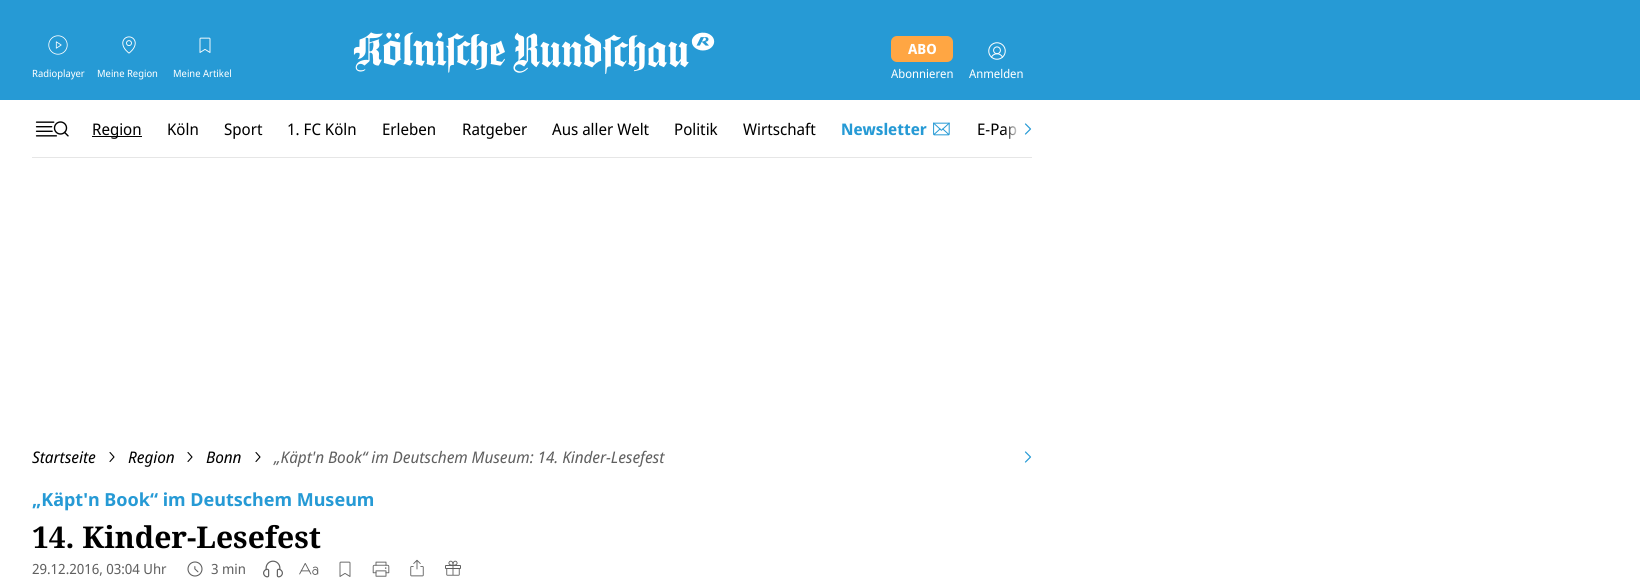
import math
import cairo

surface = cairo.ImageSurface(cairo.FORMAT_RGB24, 1640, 588)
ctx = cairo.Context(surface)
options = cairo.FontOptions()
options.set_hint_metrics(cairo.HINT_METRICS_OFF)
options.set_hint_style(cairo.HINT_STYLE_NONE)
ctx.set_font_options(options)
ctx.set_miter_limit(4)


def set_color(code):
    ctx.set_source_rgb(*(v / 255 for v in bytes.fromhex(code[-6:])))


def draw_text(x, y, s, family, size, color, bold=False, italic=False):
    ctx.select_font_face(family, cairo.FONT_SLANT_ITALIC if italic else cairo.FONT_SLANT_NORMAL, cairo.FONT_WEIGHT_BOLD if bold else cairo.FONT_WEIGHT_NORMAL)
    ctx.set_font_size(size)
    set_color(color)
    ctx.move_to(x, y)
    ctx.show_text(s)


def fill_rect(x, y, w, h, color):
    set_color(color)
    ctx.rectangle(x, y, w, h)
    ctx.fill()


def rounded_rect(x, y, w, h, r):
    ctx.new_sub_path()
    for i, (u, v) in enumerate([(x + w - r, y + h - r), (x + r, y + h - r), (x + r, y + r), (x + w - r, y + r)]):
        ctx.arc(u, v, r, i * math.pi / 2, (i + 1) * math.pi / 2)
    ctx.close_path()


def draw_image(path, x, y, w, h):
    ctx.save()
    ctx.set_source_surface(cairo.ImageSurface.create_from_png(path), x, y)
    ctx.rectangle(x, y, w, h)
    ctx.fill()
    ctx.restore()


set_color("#ffffff")
ctx.paint()
fill_rect(0, 0, 1640, 100, "#269ad5")
draw_image("assets/img1.png", 48, 35, 20, 20)
draw_text(32, 77, "Radioplayer", "Noto Sans Display", 10, "#ffffff")
draw_image("assets/img2.png", 122, 36, 14, 18)
draw_text(97, 77, "Meine Region", "Noto Sans Display", 10, "#ffffff")
draw_image("assets/img3.png", 199, 37, 12, 16)
draw_text(173, 77, "Meine Artikel", "Noto Sans Display", 10, "#ffffff")
draw_image("assets/img4.png", 353, 32, 362, 42)
set_color("#ffa643")
rounded_rect(891, 36, 62, 26, 6)
ctx.fill()
draw_text(908, 54, "ABO", "Noto Sans Display", 14, "#ffffff", bold=True)
draw_text(891, 78, "Abonnieren", "Noto Sans Display", 12, "#ffffff")
draw_image("assets/img5.png", 988, 42, 18, 18)
draw_text(969, 78, "Anmelden", "Noto Sans Display", 12, "#ffffff")
fill_rect(32, 157, 1000, 1, "#e6e6e6")
draw_image("assets/img6.png", 35, 121, 34, 16)
fill_rect(92, 136, 50, 1, "#000000")
draw_text(92, 135, "Region", "Noto Sans Display", 16, "#000000")
draw_text(167, 135, "Köln", "Noto Sans Display", 16, "#000000")
draw_text(224, 135, "Sport", "Noto Sans Display", 16, "#000000")
draw_text(287, 135, "1. FC Köln", "Noto Sans Display", 16, "#000000")
draw_text(382, 135, "Erleben", "Noto Sans Display", 16, "#000000")
draw_text(462, 135, "Ratgeber", "Noto Sans Display", 16, "#000000")
draw_text(552, 135, "Aus aller Welt", "Noto Sans Display", 16, "#000000")
draw_text(674, 135, "Politik", "Noto Sans Display", 16, "#000000")
draw_text(743, 135, "Wirtschaft", "Noto Sans Display", 16, "#000000")
draw_text(841, 135, "Newsletter", "Noto Sans Display", 16, "#269ad5", bold=True)
draw_image("assets/img7.png", 933, 122, 17, 14)
draw_text(977, 135, "E-Pap", "Noto Sans Display", 16, "#000000")
gradient = cairo.LinearGradient(1036, 129, 1004, 129)
gradient.add_color_stop_rgba(0, 1, 1, 1, 1)
gradient.add_color_stop_rgba(0.5, 1, 1, 1, 1)
gradient.add_color_stop_rgba(1, 1, 1, 1, 0)
ctx.set_source(gradient)
ctx.rectangle(1004, 126, 13, 13)
ctx.fill()
ctx.new_path()
ctx.move_to(1025.5, 134)
ctx.line_to(1030.5, 129)
ctx.line_to(1025.5, 124)
set_color("#269ad5")
ctx.set_line_width(1.2)
ctx.set_line_cap(cairo.LINE_CAP_ROUND)
ctx.set_line_join(cairo.LINE_JOIN_ROUND)
ctx.stroke()
draw_text(32, 463, "Startseite", "Noto Sans Display", 16, "#000000", italic=True)
ctx.new_path()
ctx.move_to(110, 461.5)
ctx.line_to(114, 457)
ctx.line_to(110, 452.5)
ctx.set_line_width(1.1)
ctx.stroke()
draw_text(128, 463, "Region", "Noto Sans Display", 16, "#000000", italic=True)
ctx.new_path()
ctx.move_to(188, 461.5)
ctx.line_to(192, 457)
ctx.line_to(188, 452.5)
ctx.stroke()
draw_text(206, 463, "Bonn", "Noto Sans Display", 16, "#000000", italic=True)
ctx.new_path()
ctx.move_to(256, 461.5)
ctx.line_to(260, 457)
ctx.line_to(256, 452.5)
ctx.stroke()
draw_text(274, 463, "„Käpt'n Book“ im Deutschem Museum: 14. Kinder-Lesefest", "Noto Sans Display", 16, "#606060", italic=True)
ctx.new_path()
ctx.move_to(1025.5, 462)
ctx.line_to(1030.5, 457)
ctx.line_to(1025.5, 452)
set_color("#269ad5")
ctx.set_line_width(1.2)
ctx.stroke()
draw_text(32, 506, "„Käpt'n Book“ im Deutschem Museum", "Noto Sans", 18, "#269ad5", bold=True)
draw_text(32, 548, "14. Kinder-Lesefest", "Noto Serif", 30, "#000000", bold=True)
draw_text(32, 574, "29.12.2016, 03:04 Uhr", "Noto Sans Display", 14, "#606060")
draw_image("assets/img8.png", 187, 561, 16, 16)
draw_text(211, 574, "3 min", "Noto Sans Display", 14, "#606060")
draw_image("assets/img9.png", 263, 560, 20, 18)
draw_image("assets/img10.png", 299, 563, 20, 12)
draw_image("assets/img11.png", 339, 561, 12, 16)
draw_image("assets/img12.png", 372, 561, 18, 16)
draw_image("assets/img13.png", 410, 559, 14, 18)
draw_image("assets/img14.png", 445, 560, 16, 16)
surface.write_to_png("output.png")
